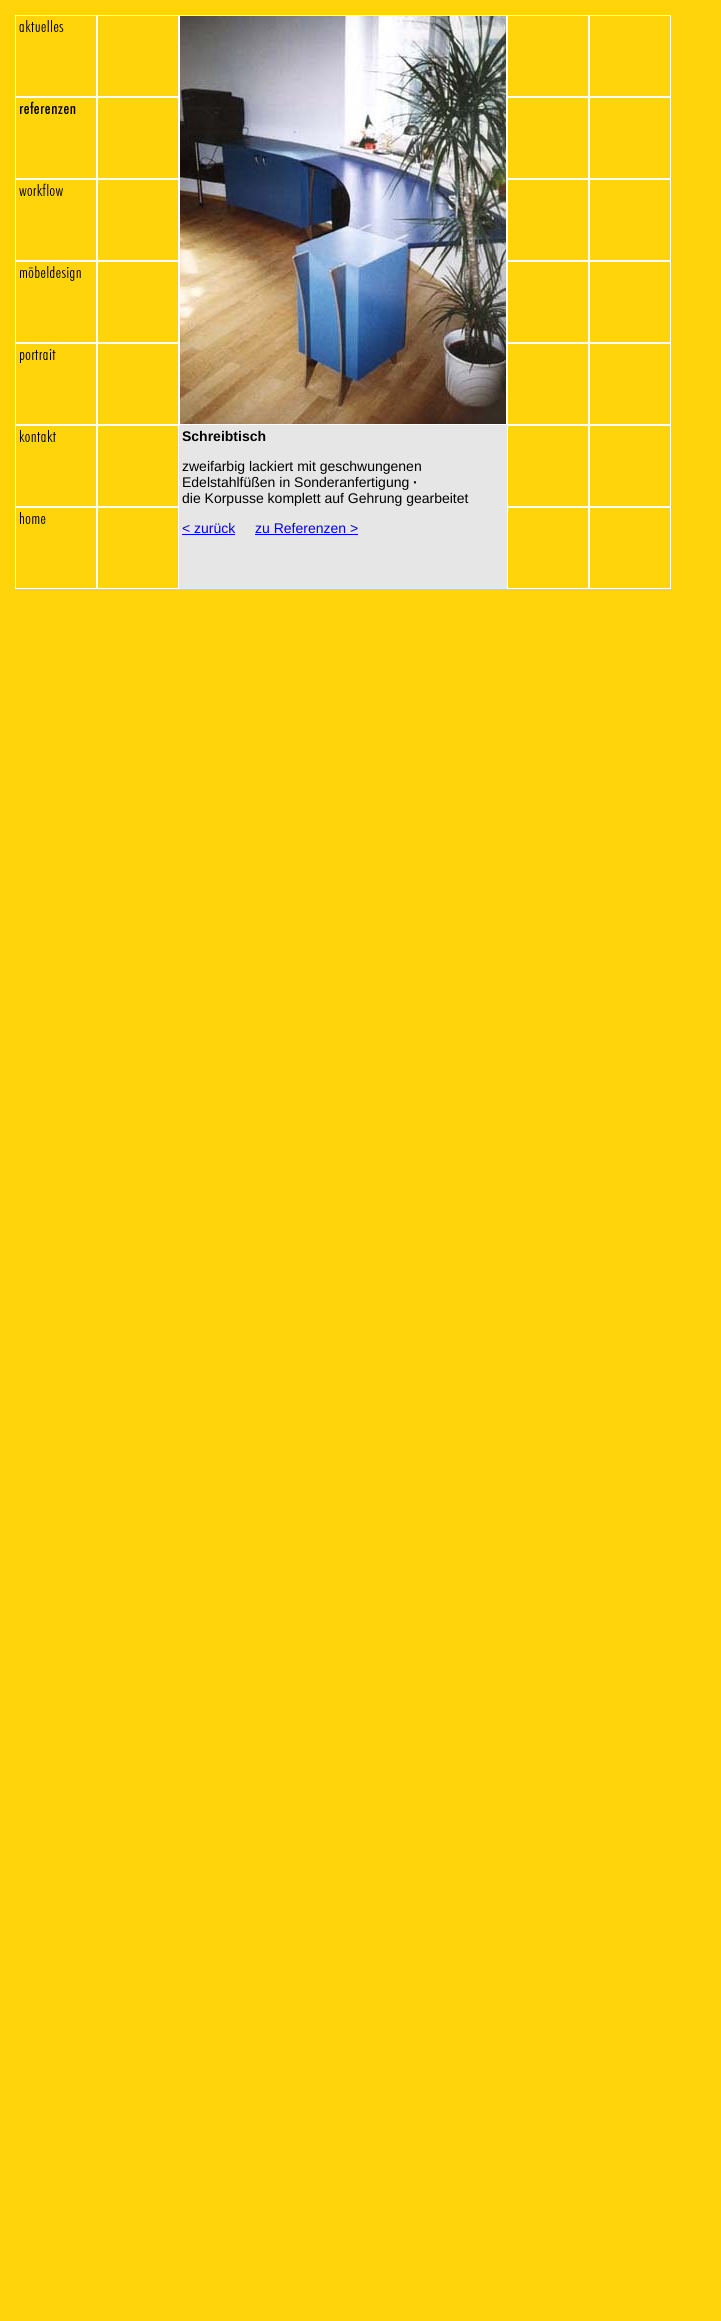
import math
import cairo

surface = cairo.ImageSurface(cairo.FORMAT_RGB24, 721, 2321)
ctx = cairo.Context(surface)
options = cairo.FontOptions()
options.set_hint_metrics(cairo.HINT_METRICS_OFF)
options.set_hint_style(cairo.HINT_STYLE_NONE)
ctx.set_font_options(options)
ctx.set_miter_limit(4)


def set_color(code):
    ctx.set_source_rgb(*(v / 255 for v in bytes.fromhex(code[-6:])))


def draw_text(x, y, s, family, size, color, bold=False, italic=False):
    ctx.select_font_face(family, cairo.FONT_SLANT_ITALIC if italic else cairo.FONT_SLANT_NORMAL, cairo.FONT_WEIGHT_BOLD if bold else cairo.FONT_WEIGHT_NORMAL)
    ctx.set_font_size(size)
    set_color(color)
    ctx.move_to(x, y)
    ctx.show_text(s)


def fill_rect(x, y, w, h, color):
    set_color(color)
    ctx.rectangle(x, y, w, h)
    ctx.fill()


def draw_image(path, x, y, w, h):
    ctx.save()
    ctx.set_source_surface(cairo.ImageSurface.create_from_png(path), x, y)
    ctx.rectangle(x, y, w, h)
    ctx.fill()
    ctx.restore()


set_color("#ffd40a")
ctx.paint()
fill_rect(15, 15, 656, 574, "#ffffff")
draw_image("assets/img1.png", 16, 16, 80, 80)
fill_rect(98, 16, 80, 80, "#ffd40a")
draw_image("assets/img2.png", 180, 16, 326, 408)
fill_rect(508, 16, 80, 80, "#ffd40a")
fill_rect(590, 16, 80, 80, "#ffd40a")
draw_image("assets/img3.png", 16, 98, 80, 80)
fill_rect(98, 98, 80, 80, "#ffd40a")
fill_rect(508, 98, 80, 80, "#ffd40a")
fill_rect(590, 98, 80, 80, "#ffd40a")
draw_image("assets/img4.png", 16, 180, 80, 80)
fill_rect(98, 180, 80, 80, "#ffd40a")
fill_rect(508, 180, 80, 80, "#ffd40a")
fill_rect(590, 180, 80, 80, "#ffd40a")
draw_image("assets/img5.png", 16, 262, 80, 80)
fill_rect(98, 262, 80, 80, "#ffd40a")
fill_rect(508, 262, 80, 80, "#ffd40a")
fill_rect(590, 262, 80, 80, "#ffd40a")
draw_image("assets/img6.png", 16, 344, 80, 80)
fill_rect(98, 344, 80, 80, "#ffd40a")
fill_rect(508, 344, 80, 80, "#ffd40a")
fill_rect(590, 344, 80, 80, "#ffd40a")
draw_image("assets/img7.png", 16, 426, 80, 80)
fill_rect(98, 426, 80, 80, "#ffd40a")
fill_rect(179, 425, 328, 164, "#e6e6e6")
draw_text(182, 441, "Schreibtisch", "Liberation Sans", 14, "#000000", bold=True)
draw_text(182, 471, "zweifarbig lackiert mit geschwungenen", "Liberation Sans", 14, "#000000")
draw_text(182, 487, "Edelstahlfüßen in Sonderanfertigung", "Liberation Sans", 14, "#000000")
draw_text(413, 487, "·", "Liberation Sans", 14, "#000000", bold=True)
draw_text(182, 503, "die Korpusse komplett auf Gehrung gearbeitet", "Liberation Sans", 14, "#000000")
draw_text(182, 533, "< zurück", "Liberation Sans", 14, "#0000ee")
fill_rect(182, 534, 53, 1, "#0000ee")
draw_text(255, 533, "zu Referenzen >", "Liberation Sans", 14, "#0000ee")
fill_rect(255, 534, 103, 1, "#0000ee")
fill_rect(508, 426, 80, 80, "#ffd40a")
fill_rect(590, 426, 80, 80, "#ffd40a")
draw_image("assets/img8.png", 16, 508, 80, 80)
fill_rect(98, 508, 80, 80, "#ffd40a")
fill_rect(508, 508, 80, 80, "#ffd40a")
fill_rect(590, 508, 80, 80, "#ffd40a")
surface.write_to_png("output.png")
